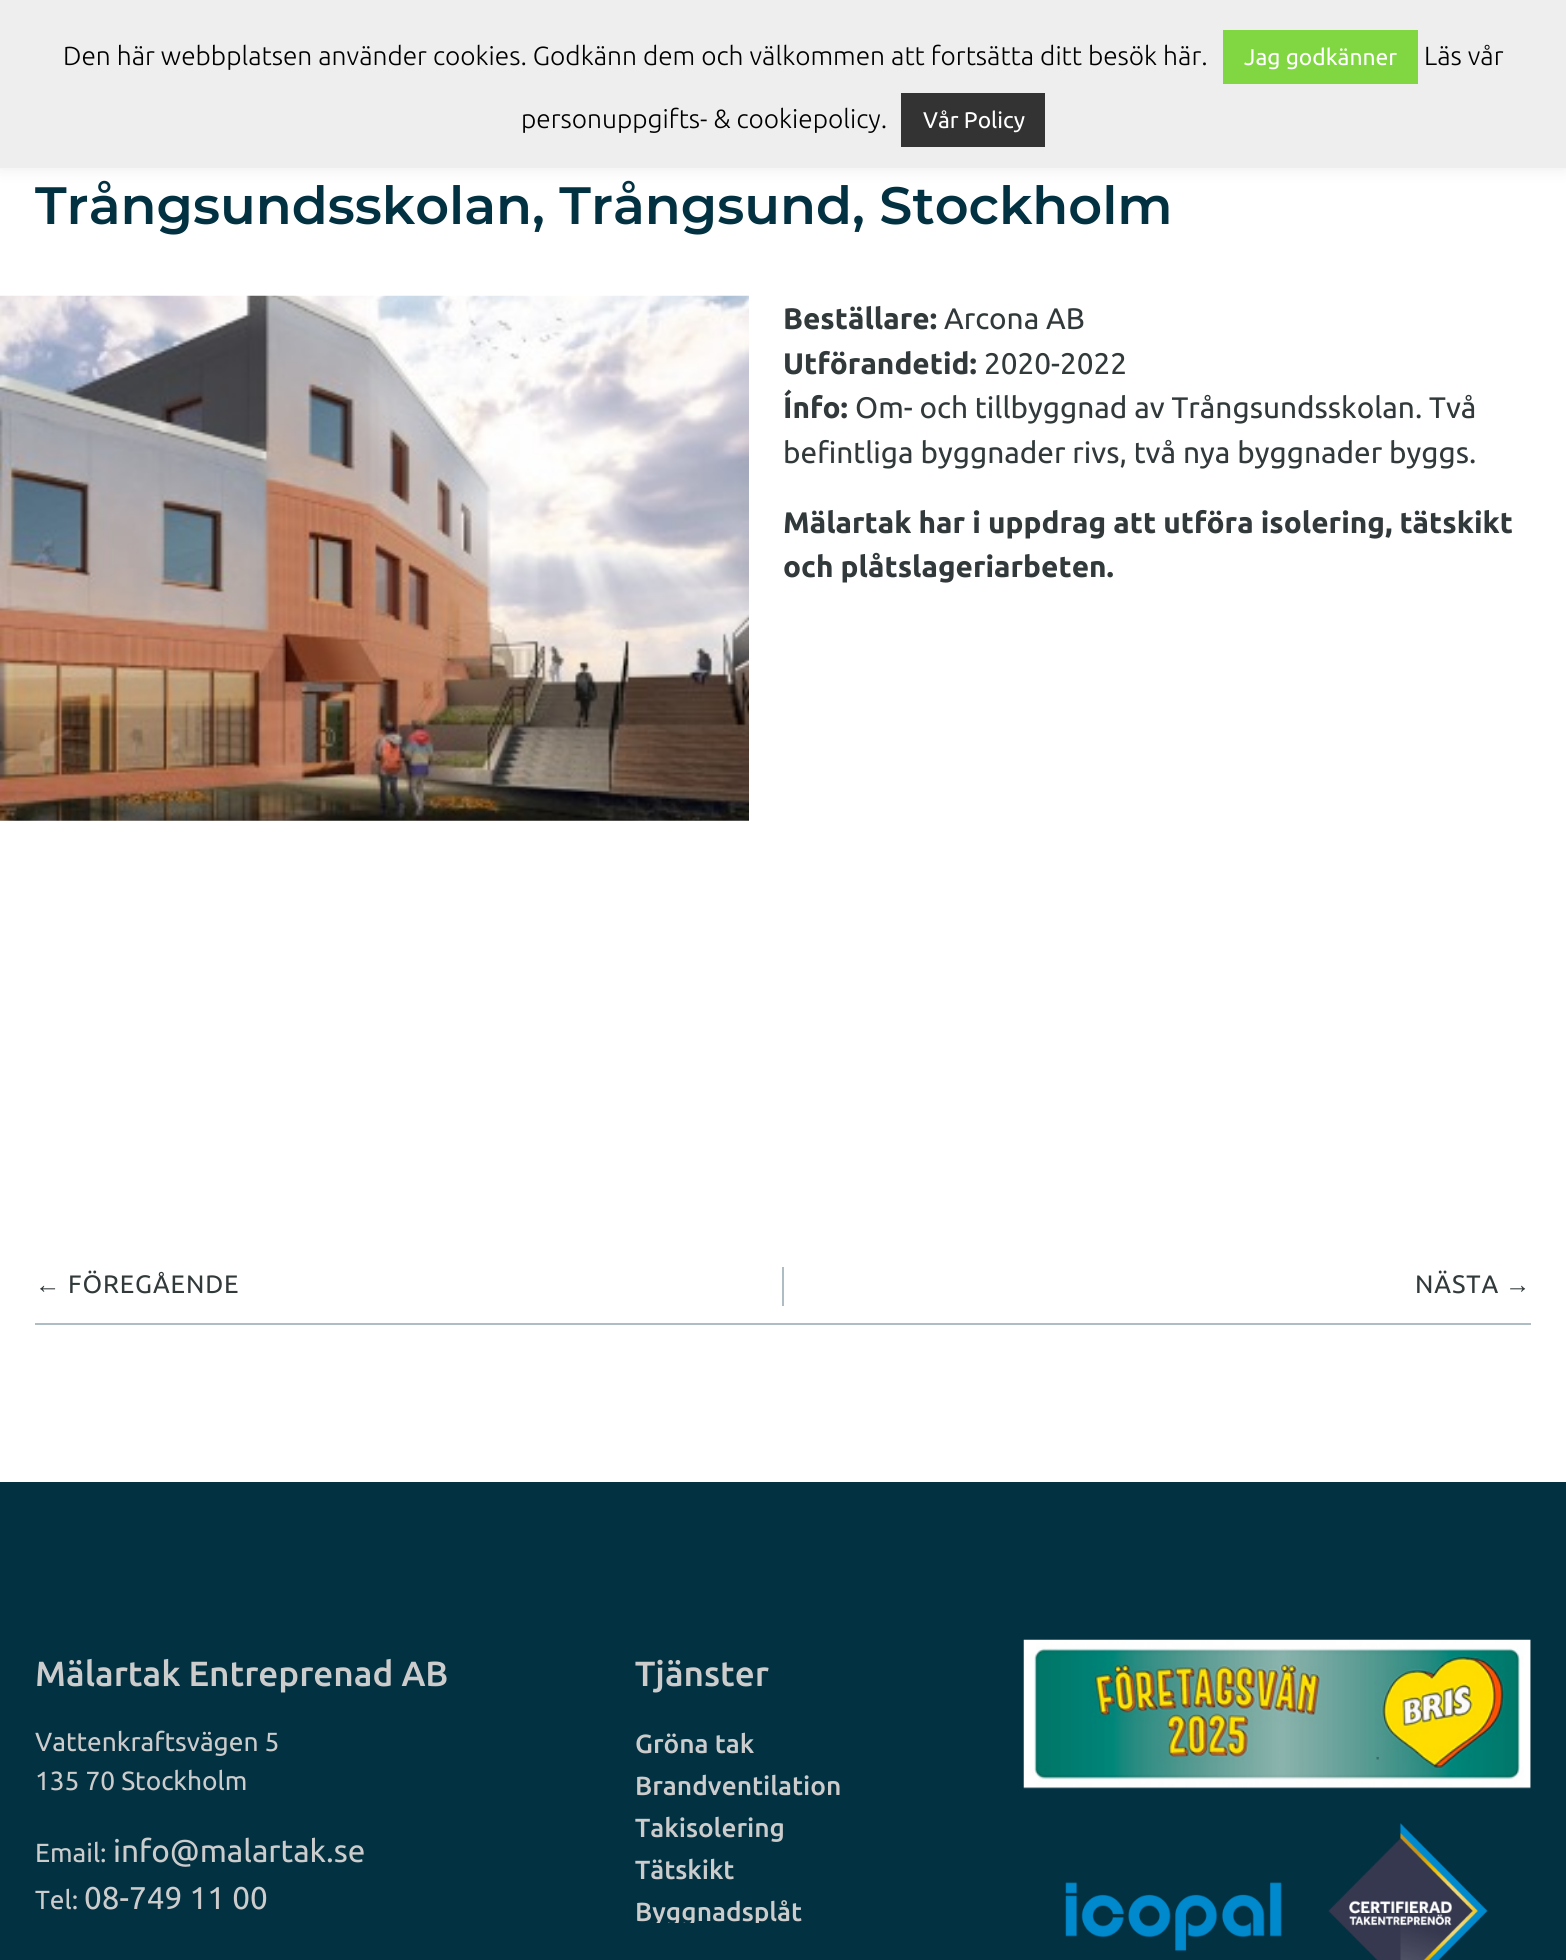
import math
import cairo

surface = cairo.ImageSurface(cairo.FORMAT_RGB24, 1566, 1960)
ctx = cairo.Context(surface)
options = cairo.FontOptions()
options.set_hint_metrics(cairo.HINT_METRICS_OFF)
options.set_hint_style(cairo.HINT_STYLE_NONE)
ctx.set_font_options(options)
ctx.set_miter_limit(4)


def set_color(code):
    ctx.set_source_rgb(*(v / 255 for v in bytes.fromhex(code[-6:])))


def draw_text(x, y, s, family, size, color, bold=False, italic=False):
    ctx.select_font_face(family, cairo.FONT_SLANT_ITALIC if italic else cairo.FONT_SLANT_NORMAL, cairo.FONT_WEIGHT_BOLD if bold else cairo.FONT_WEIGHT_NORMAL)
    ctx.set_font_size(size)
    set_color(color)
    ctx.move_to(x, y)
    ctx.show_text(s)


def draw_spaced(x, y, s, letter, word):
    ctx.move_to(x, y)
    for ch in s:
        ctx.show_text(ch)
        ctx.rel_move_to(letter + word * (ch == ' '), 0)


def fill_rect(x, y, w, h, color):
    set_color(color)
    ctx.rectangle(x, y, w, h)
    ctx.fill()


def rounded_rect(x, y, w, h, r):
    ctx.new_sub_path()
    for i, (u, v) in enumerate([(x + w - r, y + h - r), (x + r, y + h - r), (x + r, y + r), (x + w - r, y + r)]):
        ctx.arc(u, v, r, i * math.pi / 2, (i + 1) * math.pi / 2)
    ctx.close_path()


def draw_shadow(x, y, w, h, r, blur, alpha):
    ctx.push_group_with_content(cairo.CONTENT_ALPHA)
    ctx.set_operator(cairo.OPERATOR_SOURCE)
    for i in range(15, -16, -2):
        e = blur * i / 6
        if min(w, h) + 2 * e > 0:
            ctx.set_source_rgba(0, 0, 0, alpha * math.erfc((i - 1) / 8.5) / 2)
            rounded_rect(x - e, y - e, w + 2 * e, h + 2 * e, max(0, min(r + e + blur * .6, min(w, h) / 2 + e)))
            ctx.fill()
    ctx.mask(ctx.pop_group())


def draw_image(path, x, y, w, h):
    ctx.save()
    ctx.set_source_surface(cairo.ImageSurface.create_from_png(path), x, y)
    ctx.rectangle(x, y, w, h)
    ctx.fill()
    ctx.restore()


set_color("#ffffff")
ctx.paint()
set_color("#acabab")
draw_shadow(0, -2, 1566, 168, 0, 9, 0.3)
fill_rect(0, 0, 1566, 168, "#eeeeee")
draw_text(63, 65, "Den här webbplatsen använder cookies. Godkänn dem och välkommen att fortsätta ditt besök här.", "Ubuntu Light", 26.25, "#000000")
fill_rect(1223, 30, 195, 54, "#81d742")
draw_text(1244, 65, "Jag godkänner", "Ubuntu", 22.75, "#ffffff")
draw_text(1424, 65, "Läs vår", "Ubuntu Light", 26.25, "#000000")
draw_text(521, 128, "personuppgifts- & cookiepolicy.", "Ubuntu Light", 26.25, "#000000")
fill_rect(901, 93, 144, 54, "#333333")
draw_text(923, 128, "Vår Policy", "Ubuntu", 22.75, "#ffffff")
draw_text(35, 224, "Trångsundsskolan, Trångsund, Stockholm", "Montserrat SemiBold", 52.5, "#023142")
draw_image("assets/img1.png", 0, 295, 749, 526)
draw_text(783, 329, "Beställare:", "Ubuntu", 29.75, "#31393b", bold=True)
draw_text(944, 329, "Arcona AB", "Ubuntu", 29.75, "#31393b")
draw_text(783, 374, "Utförandetid:", "Ubuntu", 29.75, "#31393b", bold=True)
draw_text(984, 374, "2020-2022", "Ubuntu", 29.75, "#31393b")
draw_text(783, 418, "Ínfo:", "Ubuntu", 29.75, "#31393b", bold=True)
draw_text(855, 418, "Om- och tillbyggnad av Trångsundsskolan. Två", "Ubuntu", 29.75, "#31393b")
draw_text(783, 463, "befintliga byggnader rivs, två nya byggnader byggs.", "Ubuntu", 29.75, "#31393b")
draw_text(783, 533, "Mälartak har i uppdrag att utföra isolering, tätskikt", "Ubuntu", 29.75, "#31393b", bold=True)
draw_text(783, 577, "och plåtslageriarbeten.", "Ubuntu", 29.75, "#31393b", bold=True)
fill_rect(35, 1323, 1496, 2, "#aebdc3")
ctx.select_font_face("Liberation Sans")
ctx.set_font_size(25.25)
set_color("#31393b")
draw_spaced(35, 1293, "←", 0.9, 0)
ctx.select_font_face("Ubuntu")
draw_spaced(68, 1293, "FÖREGÅENDE", 0.9, 0)
fill_rect(782, 1267, 2, 39, "#aebdc3")
set_color("#31393b")
draw_spaced(1415, 1293, "NÄSTA", 0.9, 0)
ctx.select_font_face("Liberation Sans")
draw_spaced(1505, 1293, "→", 0.9, 0)
fill_rect(0, 1482, 1566, 478, "#023142")
draw_text(35, 1686, "Mälartak Entreprenad AB", "Ubuntu Medium", 35, "#cccccc")
draw_text(35, 1751, "Vattenkraftsvägen 5", "Ubuntu", 26.25, "#cccccc")
draw_text(35, 1790, "135 70 Stockholm", "Ubuntu", 26.25, "#cccccc")
draw_text(35, 1862, "Email:", "Ubuntu", 26.25, "#cccccc")
draw_text(113, 1862, "info@malartak.se", "Ubuntu", 31.5, "#cccccc")
draw_text(35, 1909, "Tel:", "Ubuntu", 26.25, "#cccccc")
draw_text(84, 1909, "08-749 11 00", "Ubuntu", 31.5, "#cccccc")
draw_text(635, 1686, "Tjänster", "Ubuntu Medium", 35, "#cccccc")
draw_text(635, 1753, "Gröna tak", "Ubuntu Medium", 26.25, "#cccccc")
draw_text(635, 1795, "Brandventilation", "Ubuntu Medium", 26.25, "#cccccc")
draw_text(635, 1837, "Takisolering", "Ubuntu Medium", 26.25, "#cccccc")
draw_text(635, 1879, "Tätskikt", "Ubuntu Medium", 26.25, "#cccccc")
ctx.save()
ctx.rectangle(635, 1724, 354, 199)
ctx.clip()
draw_text(635, 1921, "Byggnadsplåt", "Ubuntu Medium", 26.25, "#cccccc")
ctx.restore()
draw_image("assets/img2.png", 1023, 1639, 508, 150)
draw_image("assets/img3.png", 1065, 1823, 423, 137)
surface.write_to_png("output.png")
